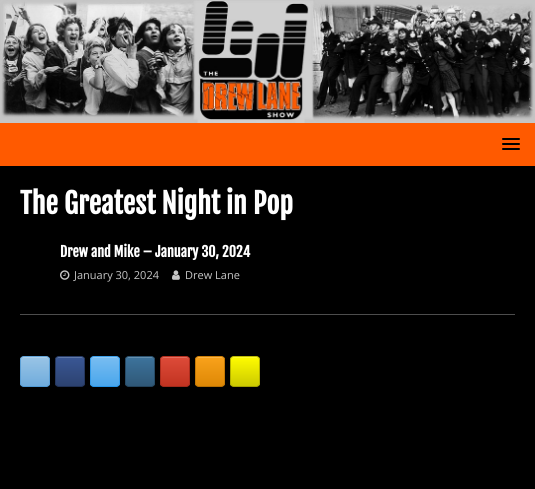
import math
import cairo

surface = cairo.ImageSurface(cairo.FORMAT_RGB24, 535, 489)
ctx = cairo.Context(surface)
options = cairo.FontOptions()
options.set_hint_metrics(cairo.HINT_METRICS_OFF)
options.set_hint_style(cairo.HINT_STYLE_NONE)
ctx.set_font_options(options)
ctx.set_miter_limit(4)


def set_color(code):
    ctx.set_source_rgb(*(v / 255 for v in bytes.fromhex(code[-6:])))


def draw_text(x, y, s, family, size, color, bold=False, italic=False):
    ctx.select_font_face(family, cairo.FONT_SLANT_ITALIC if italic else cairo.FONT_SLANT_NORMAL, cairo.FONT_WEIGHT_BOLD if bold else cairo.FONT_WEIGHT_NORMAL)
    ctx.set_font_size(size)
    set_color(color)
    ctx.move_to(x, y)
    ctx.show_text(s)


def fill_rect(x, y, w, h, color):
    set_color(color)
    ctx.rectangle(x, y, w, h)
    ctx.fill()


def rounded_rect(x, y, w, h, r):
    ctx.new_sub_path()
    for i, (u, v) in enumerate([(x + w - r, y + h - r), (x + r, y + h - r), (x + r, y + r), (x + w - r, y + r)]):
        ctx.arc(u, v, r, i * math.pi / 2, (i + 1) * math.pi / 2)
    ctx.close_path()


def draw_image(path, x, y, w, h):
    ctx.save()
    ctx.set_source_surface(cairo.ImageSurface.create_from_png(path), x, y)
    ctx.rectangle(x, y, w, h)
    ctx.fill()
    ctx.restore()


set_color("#ff5a00")
ctx.paint()
draw_image("assets/img1.png", 0, 0, 535, 123)
set_color("#000000")
rounded_rect(502, 138, 18, 2, 1)
ctx.fill()
rounded_rect(502, 143, 18, 2, 1)
ctx.fill()
rounded_rect(502, 148, 18, 2, 1)
ctx.fill()
fill_rect(0, 166, 535, 323, "#000000")
draw_text(20, 214, "The Greatest Night in Pop", "Fjalla One", 28, "#ffffff", bold=True)
fill_rect(20, 314, 495, 1, "#4d4d4d")
draw_text(60, 257, "Drew and Mike – January 30, 2024", "Fjalla One", 14, "#ffffff", bold=True)
draw_image("assets/img2.png", 60, 270, 10, 10)
draw_text(74, 279, "January 30, 2024", "Open Sans", 11, "#c6c6c6")
draw_image("assets/img3.png", 172, 270, 8, 10)
draw_text(185, 279, "Drew Lane", "Open Sans", 11, "#c6c6c6")
ctx.save()
rounded_rect(20, 356, 30, 31, 4)
ctx.clip()
gradient = cairo.LinearGradient(21, 386, 21, 357)
gradient.add_color_stop_rgba(0, 0.439, 0.675, 0.863, 1)
gradient.add_color_stop_rgba(1, 0.6, 0.769, 0.902, 1)
ctx.set_source(gradient)
ctx.rectangle(20, 357, 30, 29)
ctx.fill()
ctx.restore()
set_color("#add0eb")
ctx.new_path()
ctx.move_to(24, 358)
ctx.line_to(46, 358)
ctx.curve_to(48, 358, 49, 359, 49, 360)
ctx.curve_to(49, 356.5, 45.5, 357, 42.5, 357)
ctx.line_to(27.5, 357)
ctx.curve_to(24.5, 357, 21, 356.5, 21, 360)
ctx.curve_to(21, 359, 22, 358, 24, 358)
ctx.close_path()
ctx.fill()
ctx.new_path()
ctx.move_to(21.5, 357.5)
ctx.curve_to(22, 357, 22.5, 356.5, 23.5, 356.5)
ctx.line_to(46.5, 356.5)
ctx.curve_to(47.5, 356.5, 48, 357, 48.5, 357.5)
set_color("#64a5d9")
ctx.set_line_width(1)
ctx.stroke()
ctx.new_path()
ctx.move_to(48.5, 357.5)
ctx.curve_to(49, 358, 49.5, 358.5, 49.5, 359.5)
ctx.line_to(49.5, 383.5)
ctx.curve_to(49.5, 384.5, 49, 385, 48.5, 385.5)
set_color("#5ca0d7")
ctx.stroke()
ctx.new_path()
ctx.move_to(48.5, 385.5)
ctx.curve_to(48, 386, 47.5, 386.5, 46.5, 386.5)
ctx.line_to(23.5, 386.5)
ctx.curve_to(22.5, 386.5, 22, 386, 21.5, 385.5)
set_color("#4f99d4")
ctx.stroke()
ctx.new_path()
ctx.move_to(21.5, 385.5)
ctx.curve_to(21, 385, 20.5, 384.5, 20.5, 383.5)
ctx.line_to(20.5, 359.5)
ctx.curve_to(20.5, 358.5, 21, 358, 21.5, 357.5)
set_color("#5ca0d7")
ctx.stroke()
ctx.save()
rounded_rect(55, 356, 30, 31, 4)
ctx.clip()
gradient = cairo.LinearGradient(56, 386, 56, 357)
gradient.add_color_stop_rgba(0, 0.173, 0.259, 0.439, 1)
gradient.add_color_stop_rgba(1, 0.227, 0.341, 0.584, 1)
ctx.set_source(gradient)
ctx.rectangle(55, 357, 30, 29)
ctx.fill()
ctx.restore()
set_color("#6179a9")
ctx.new_path()
ctx.move_to(58, 358)
ctx.line_to(82, 358)
ctx.curve_to(83, 358, 84, 359, 84, 360)
ctx.curve_to(84, 356.5, 80.5, 357, 77.5, 357)
ctx.line_to(62.5, 357)
ctx.curve_to(59.5, 357, 56, 356.5, 56, 360)
ctx.curve_to(56, 359, 57, 358, 58, 358)
ctx.close_path()
ctx.fill()
ctx.new_path()
ctx.move_to(56.5, 357.5)
ctx.curve_to(57, 357, 57.5, 356.5, 58.5, 356.5)
ctx.line_to(81.5, 356.5)
ctx.curve_to(82.5, 356.5, 83, 357, 83.5, 357.5)
set_color("#273b65")
ctx.stroke()
ctx.new_path()
ctx.move_to(83.5, 357.5)
ctx.curve_to(84, 358, 84.5, 358.5, 84.5, 359.5)
ctx.line_to(84.5, 383.5)
ctx.curve_to(84.5, 384.5, 84, 385, 83.5, 385.5)
set_color("#25375e")
ctx.stroke()
ctx.new_path()
ctx.move_to(83.5, 385.5)
ctx.curve_to(83, 386, 82.5, 386.5, 81.5, 386.5)
ctx.line_to(58.5, 386.5)
ctx.curve_to(57.5, 386.5, 57, 386, 56.5, 385.5)
set_color("#203053")
ctx.stroke()
ctx.new_path()
ctx.move_to(56.5, 385.5)
ctx.curve_to(56, 385, 55.5, 384.5, 55.5, 383.5)
ctx.line_to(55.5, 359.5)
ctx.curve_to(55.5, 358.5, 56, 358, 56.5, 357.5)
set_color("#25375e")
ctx.stroke()
ctx.save()
rounded_rect(90, 356, 30, 31, 4)
ctx.clip()
gradient = cairo.LinearGradient(91, 386, 91, 357)
gradient.add_color_stop_rgba(0, 0.29, 0.651, 0.925, 1)
gradient.add_color_stop_rgba(1, 0.471, 0.741, 0.945, 1)
ctx.set_source(gradient)
ctx.rectangle(90, 357, 30, 29)
ctx.fill()
ctx.restore()
set_color("#92caf4")
ctx.new_path()
ctx.move_to(94, 358)
ctx.line_to(116, 358)
ctx.curve_to(118, 358, 119, 359, 119, 360)
ctx.curve_to(119, 356.5, 115.5, 357, 112.5, 357)
ctx.line_to(97.5, 357)
ctx.curve_to(94.5, 357, 91, 356.5, 91, 360)
ctx.curve_to(91, 359, 92, 358, 94, 358)
ctx.close_path()
ctx.fill()
ctx.new_path()
ctx.move_to(91.5, 357.5)
ctx.curve_to(92, 357, 92.5, 356.5, 93.5, 356.5)
ctx.line_to(116.5, 356.5)
ctx.curve_to(117.5, 356.5, 118, 357, 118.5, 357.5)
set_color("#3ca0eb")
ctx.stroke()
ctx.new_path()
ctx.move_to(118.5, 357.5)
ctx.curve_to(119, 358, 119.5, 358.5, 119.5, 359.5)
ctx.line_to(119.5, 383.5)
ctx.curve_to(119.5, 384.5, 119, 385, 118.5, 385.5)
set_color("#339bea")
ctx.stroke()
ctx.new_path()
ctx.move_to(118.5, 385.5)
ctx.curve_to(118, 386, 117.5, 386.5, 116.5, 386.5)
ctx.line_to(93.5, 386.5)
ctx.curve_to(92.5, 386.5, 92, 386, 91.5, 385.5)
set_color("#2594e8")
ctx.stroke()
ctx.new_path()
ctx.move_to(91.5, 385.5)
ctx.curve_to(91, 385, 90.5, 384.5, 90.5, 383.5)
ctx.line_to(90.5, 359.5)
ctx.curve_to(90.5, 358.5, 91, 358, 91.5, 357.5)
set_color("#339bea")
ctx.stroke()
ctx.save()
rounded_rect(125, 356, 30, 31, 4)
ctx.clip()
gradient = cairo.LinearGradient(126, 386, 126, 357)
gradient.add_color_stop_rgba(0, 0.184, 0.345, 0.467, 1)
gradient.add_color_stop_rgba(1, 0.239, 0.451, 0.612, 1)
ctx.set_source(gradient)
ctx.rectangle(125, 357, 30, 29)
ctx.fill()
ctx.restore()
set_color("#648faf")
ctx.new_path()
ctx.move_to(128, 358)
ctx.line_to(152, 358)
ctx.curve_to(153, 358, 154, 359, 154, 360)
ctx.curve_to(154, 356.5, 150.5, 357, 147.5, 357)
ctx.line_to(132.5, 357)
ctx.curve_to(129.5, 357, 126, 356.5, 126, 360)
ctx.curve_to(126, 359, 127, 358, 128, 358)
ctx.close_path()
ctx.fill()
ctx.new_path()
ctx.move_to(126.5, 357.5)
ctx.curve_to(127, 357, 127.5, 356.5, 128.5, 356.5)
ctx.line_to(151.5, 356.5)
ctx.curve_to(152.5, 356.5, 153, 357, 153.5, 357.5)
set_color("#2a506c")
ctx.stroke()
ctx.new_path()
ctx.move_to(153.5, 357.5)
ctx.curve_to(154, 358, 154.5, 358.5, 154.5, 359.5)
ctx.line_to(154.5, 383.5)
ctx.curve_to(154.5, 384.5, 154, 385, 153.5, 385.5)
set_color("#274a65")
ctx.stroke()
ctx.new_path()
ctx.move_to(153.5, 385.5)
ctx.curve_to(153, 386, 152.5, 386.5, 151.5, 386.5)
ctx.line_to(128.5, 386.5)
ctx.curve_to(127.5, 386.5, 127, 386, 126.5, 385.5)
set_color("#23425a")
ctx.stroke()
ctx.new_path()
ctx.move_to(126.5, 385.5)
ctx.curve_to(126, 385, 125.5, 384.5, 125.5, 383.5)
ctx.line_to(125.5, 359.5)
ctx.curve_to(125.5, 358.5, 126, 358, 126.5, 357.5)
set_color("#274a65")
ctx.stroke()
ctx.save()
rounded_rect(160, 356, 30, 31, 4)
ctx.clip()
gradient = cairo.LinearGradient(161, 386, 161, 357)
gradient.add_color_stop_rgba(0, 0.761, 0.2, 0.129, 1)
gradient.add_color_stop_rgba(1, 0.867, 0.294, 0.224, 1)
ctx.set_source(gradient)
ctx.rectangle(160, 357, 30, 29)
ctx.fill()
ctx.restore()
set_color("#e46f61")
ctx.new_path()
ctx.move_to(164, 358)
ctx.line_to(186, 358)
ctx.curve_to(188, 358, 189, 359, 189, 360)
ctx.curve_to(189, 356.5, 185.5, 357, 182.5, 357)
ctx.line_to(167.5, 357)
ctx.curve_to(164.5, 357, 161, 356.5, 161, 360)
ctx.curve_to(161, 359, 162, 358, 164, 358)
ctx.close_path()
ctx.fill()
ctx.new_path()
ctx.move_to(161.5, 357.5)
ctx.curve_to(162, 357, 162.5, 356.5, 163.5, 356.5)
ctx.line_to(186.5, 356.5)
ctx.curve_to(187.5, 356.5, 188, 357, 188.5, 357.5)
set_color("#b52f1f")
ctx.stroke()
ctx.new_path()
ctx.move_to(188.5, 357.5)
ctx.curve_to(189, 358, 189.5, 358.5, 189.5, 359.5)
ctx.line_to(189.5, 383.5)
ctx.curve_to(189.5, 384.5, 189, 385, 188.5, 385.5)
set_color("#ac2d1e")
ctx.stroke()
ctx.new_path()
ctx.move_to(188.5, 385.5)
ctx.curve_to(188, 386, 187.5, 386.5, 186.5, 386.5)
ctx.line_to(163.5, 386.5)
ctx.curve_to(162.5, 386.5, 162, 386, 161.5, 385.5)
set_color("#9f2a1b")
ctx.stroke()
ctx.new_path()
ctx.move_to(161.5, 385.5)
ctx.curve_to(161, 385, 160.5, 384.5, 160.5, 383.5)
ctx.line_to(160.5, 359.5)
ctx.curve_to(160.5, 358.5, 161, 358, 161.5, 357.5)
set_color("#ac2d1e")
ctx.stroke()
ctx.save()
rounded_rect(195, 356, 30, 31, 4)
ctx.clip()
gradient = cairo.LinearGradient(196, 386, 196, 357)
gradient.add_color_stop_rgba(0, 0.867, 0.533, 0.02, 1)
gradient.add_color_stop_rgba(1, 0.98, 0.635, 0.106, 1)
ctx.set_source(gradient)
ctx.rectangle(195, 357, 30, 29)
ctx.fill()
ctx.restore()
set_color("#fbb549")
ctx.new_path()
ctx.move_to(198, 358)
ctx.line_to(222, 358)
ctx.curve_to(223, 358, 224, 359, 224, 360)
ctx.curve_to(224, 356.5, 220.5, 357, 217.5, 357)
ctx.line_to(202.5, 357)
ctx.curve_to(199.5, 357, 196, 356.5, 196, 360)
ctx.curve_to(196, 359, 197, 358, 198, 358)
ctx.close_path()
ctx.fill()
ctx.new_path()
ctx.move_to(196.5, 357.5)
ctx.curve_to(197, 357, 197.5, 356.5, 198.5, 356.5)
ctx.line_to(221.5, 356.5)
ctx.curve_to(222.5, 356.5, 223, 357, 223.5, 357.5)
set_color("#ce7f05")
ctx.stroke()
ctx.new_path()
ctx.move_to(223.5, 357.5)
ctx.curve_to(224, 358, 224.5, 358.5, 224.5, 359.5)
ctx.line_to(224.5, 383.5)
ctx.curve_to(224.5, 384.5, 224, 385, 223.5, 385.5)
set_color("#c47804")
ctx.stroke()
ctx.new_path()
ctx.move_to(223.5, 385.5)
ctx.curve_to(223, 386, 222.5, 386.5, 221.5, 386.5)
ctx.line_to(198.5, 386.5)
ctx.curve_to(197.5, 386.5, 197, 386, 196.5, 385.5)
set_color("#b56f04")
ctx.stroke()
ctx.new_path()
ctx.move_to(196.5, 385.5)
ctx.curve_to(196, 385, 195.5, 384.5, 195.5, 383.5)
ctx.line_to(195.5, 359.5)
ctx.curve_to(195.5, 358.5, 196, 358, 196.5, 357.5)
set_color("#c47804")
ctx.stroke()
ctx.save()
rounded_rect(230, 356, 30, 31, 4)
ctx.clip()
gradient = cairo.LinearGradient(231, 386, 231, 357)
gradient.add_color_stop_rgba(0, 0.8, 0.792, 0, 1)
gradient.add_color_stop_rgba(1, 1, 0.988, 0, 1)
ctx.set_source(gradient)
ctx.rectangle(230, 357, 30, 29)
ctx.fill()
ctx.restore()
set_color("#fefc33")
ctx.new_path()
ctx.move_to(234, 358)
ctx.line_to(256, 358)
ctx.curve_to(258, 358, 259, 359, 259, 360)
ctx.curve_to(259, 356.5, 255.5, 357, 252.5, 357)
ctx.line_to(237.5, 357)
ctx.curve_to(234.5, 357, 231, 356.5, 231, 360)
ctx.curve_to(231, 359, 232, 358, 234, 358)
ctx.close_path()
ctx.fill()
ctx.new_path()
ctx.move_to(231.5, 357.5)
ctx.curve_to(232, 357, 232.5, 356.5, 233.5, 356.5)
ctx.line_to(256.5, 356.5)
ctx.curve_to(257.5, 356.5, 258, 357, 258.5, 357.5)
set_color("#bdba00")
ctx.stroke()
ctx.new_path()
ctx.move_to(258.5, 357.5)
ctx.curve_to(259, 358, 259.5, 358.5, 259.5, 359.5)
ctx.line_to(259.5, 383.5)
ctx.curve_to(259.5, 384.5, 259, 385, 258.5, 385.5)
set_color("#b3b000")
ctx.stroke()
ctx.new_path()
ctx.move_to(258.5, 385.5)
ctx.curve_to(258, 386, 257.5, 386.5, 256.5, 386.5)
ctx.line_to(233.5, 386.5)
ctx.curve_to(232.5, 386.5, 232, 386, 231.5, 385.5)
set_color("#a3a100")
ctx.stroke()
ctx.new_path()
ctx.move_to(231.5, 385.5)
ctx.curve_to(231, 385, 230.5, 384.5, 230.5, 383.5)
ctx.line_to(230.5, 359.5)
ctx.curve_to(230.5, 358.5, 231, 358, 231.5, 357.5)
set_color("#b3b000")
ctx.stroke()
surface.write_to_png("output.png")
